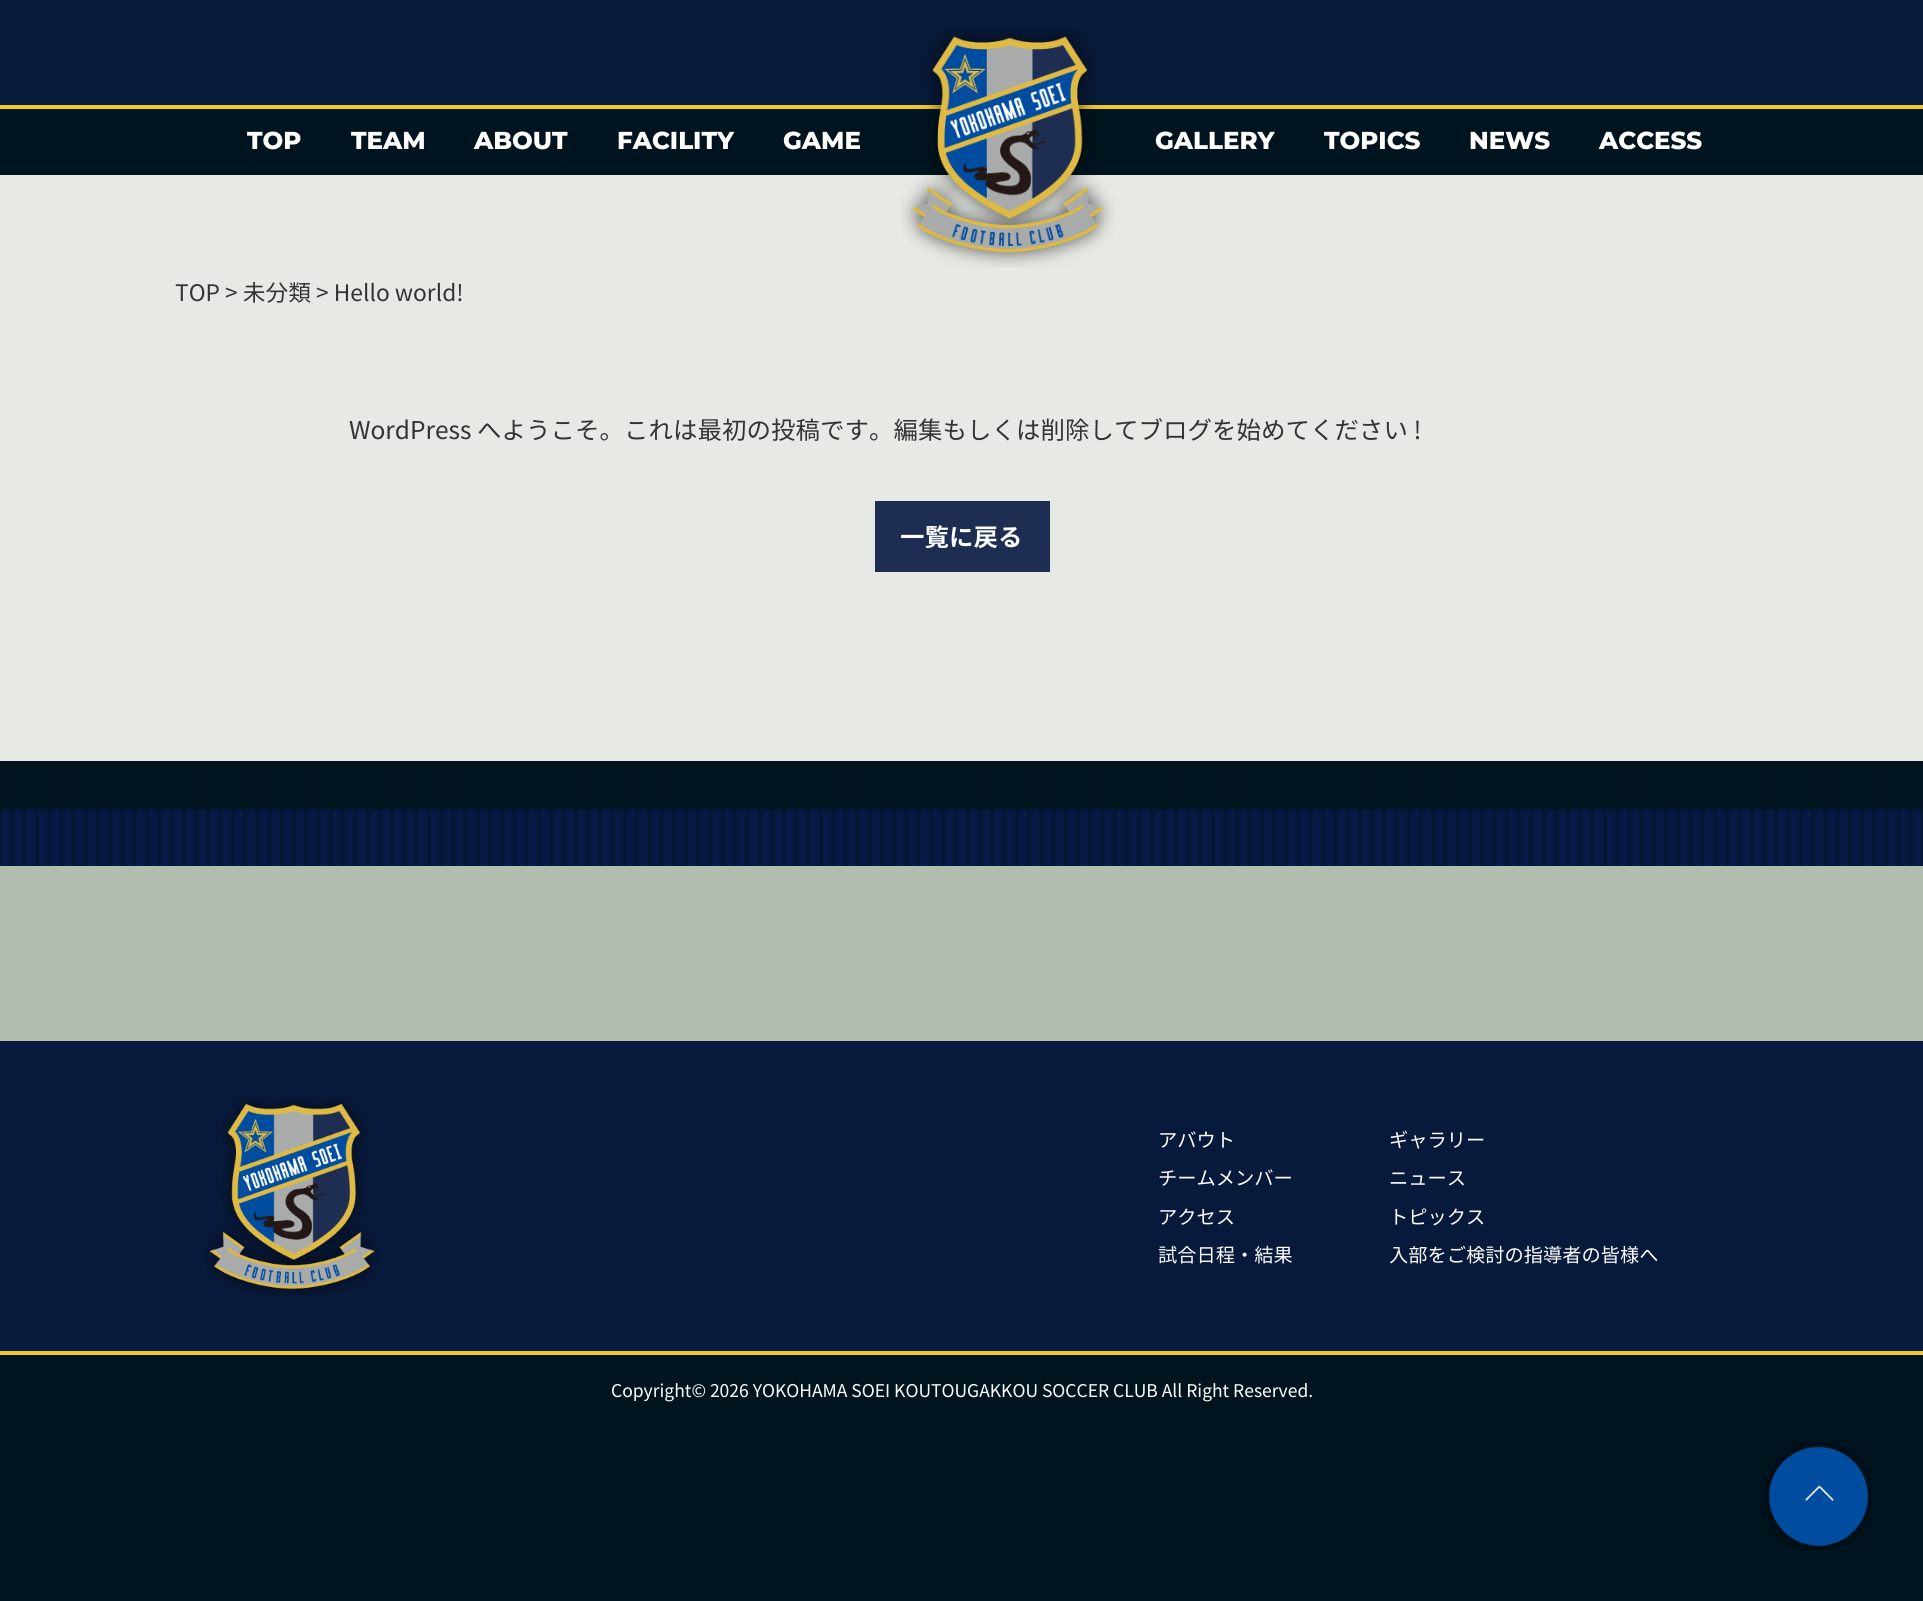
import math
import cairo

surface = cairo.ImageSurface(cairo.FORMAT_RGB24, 1923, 1601)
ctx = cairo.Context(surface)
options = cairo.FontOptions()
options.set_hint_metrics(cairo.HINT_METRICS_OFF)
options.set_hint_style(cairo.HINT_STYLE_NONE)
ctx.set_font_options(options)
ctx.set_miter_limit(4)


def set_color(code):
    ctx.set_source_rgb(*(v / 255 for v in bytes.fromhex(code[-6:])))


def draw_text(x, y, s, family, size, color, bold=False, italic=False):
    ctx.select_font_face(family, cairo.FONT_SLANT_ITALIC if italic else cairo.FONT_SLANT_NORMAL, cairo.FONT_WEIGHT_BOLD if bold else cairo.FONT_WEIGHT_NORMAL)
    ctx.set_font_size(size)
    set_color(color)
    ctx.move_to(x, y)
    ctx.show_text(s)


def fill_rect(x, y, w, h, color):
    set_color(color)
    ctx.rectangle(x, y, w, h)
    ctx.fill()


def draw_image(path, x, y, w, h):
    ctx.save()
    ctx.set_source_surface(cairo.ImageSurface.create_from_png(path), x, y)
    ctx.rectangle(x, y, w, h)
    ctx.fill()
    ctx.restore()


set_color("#00141f")
ctx.paint()
draw_image("assets/img1.png", 0, 761, 1923, 105)
fill_rect(0, 0, 1923, 105, "#081a39")
fill_rect(0, 105, 1923, 4, "#efc82a")
fill_rect(0, 175, 1923, 586, "#e6e9e4")
draw_image("assets/img2.png", 901, 28, 214, 240)
draw_text(247, 149, "TOP", "Montserrat Thin", 24.5, "#ffffff")
draw_text(351, 149, "TEAM", "Montserrat Thin", 24.5, "#ffffff")
draw_text(474, 149, "ABOUT", "Montserrat Thin", 24.5, "#ffffff")
draw_text(617, 149, "FACILITY", "Montserrat Thin", 24.5, "#ffffff")
draw_text(783, 149, "GAME", "Montserrat Thin", 24.5, "#ffffff")
draw_text(1155, 149, "GALLERY", "Montserrat Thin", 24.5, "#ffffff")
draw_text(1324, 149, "TOPICS", "Montserrat Thin", 24.5, "#ffffff")
draw_text(1469, 149, "NEWS", "Montserrat Thin", 24.5, "#ffffff")
draw_text(1599, 149, "ACCESS", "Montserrat Thin", 24.5, "#ffffff")
draw_text(175, 301, "TOP > 未分類 > Hello world!", "Noto Sans JP", 22.75, "#333333")
draw_text(349, 439, "WordPress へようこそ。これは最初の投稿です。編集もしくは削除してブログを始めてください !", "Noto Sans JP", 24.5, "#333333")
fill_rect(875, 501, 175, 71, "#1e2e53")
draw_text(900, 546, "一覧に戻る", "Noto Sans JP", 24.5, "#ffffff", bold=True)
fill_rect(0, 866, 1923, 175, "#b1bdaf")
fill_rect(0, 1041, 1923, 310, "#081a3b")
draw_image("assets/img3.png", 205, 1097, 174, 201)
draw_text(1158, 1147, "アバウト", "Noto Sans JP", 19.25, "#ffffff")
draw_text(1158, 1185, "チームメンバー", "Noto Sans JP", 19.25, "#ffffff")
draw_text(1158, 1224, "アクセス", "Noto Sans JP", 19.25, "#ffffff")
draw_text(1158, 1262, "試合日程・結果", "Noto Sans JP", 19.25, "#ffffff")
draw_text(1389, 1147, "ギャラリー", "Noto Sans JP", 19.25, "#ffffff")
draw_text(1389, 1185, "ニュース", "Noto Sans JP", 19.25, "#ffffff")
draw_text(1389, 1224, "トピックス", "Noto Sans JP", 19.25, "#ffffff")
draw_text(1389, 1262, "入部をご検討の指導者の皆様へ", "Noto Sans JP", 19.25, "#ffffff")
fill_rect(0, 1351, 1923, 4, "#efc82a")
draw_text(611, 1397, "Copyright© 2026 YOKOHAMA SOEI KOUTOUGAKKOU SOCCER CLUB All Right Reserved.", "Noto Sans JP", 17.5, "#ffffff")
draw_image("assets/img4.png", 1763, 1441, 110, 110)
surface.write_to_png("output.png")
